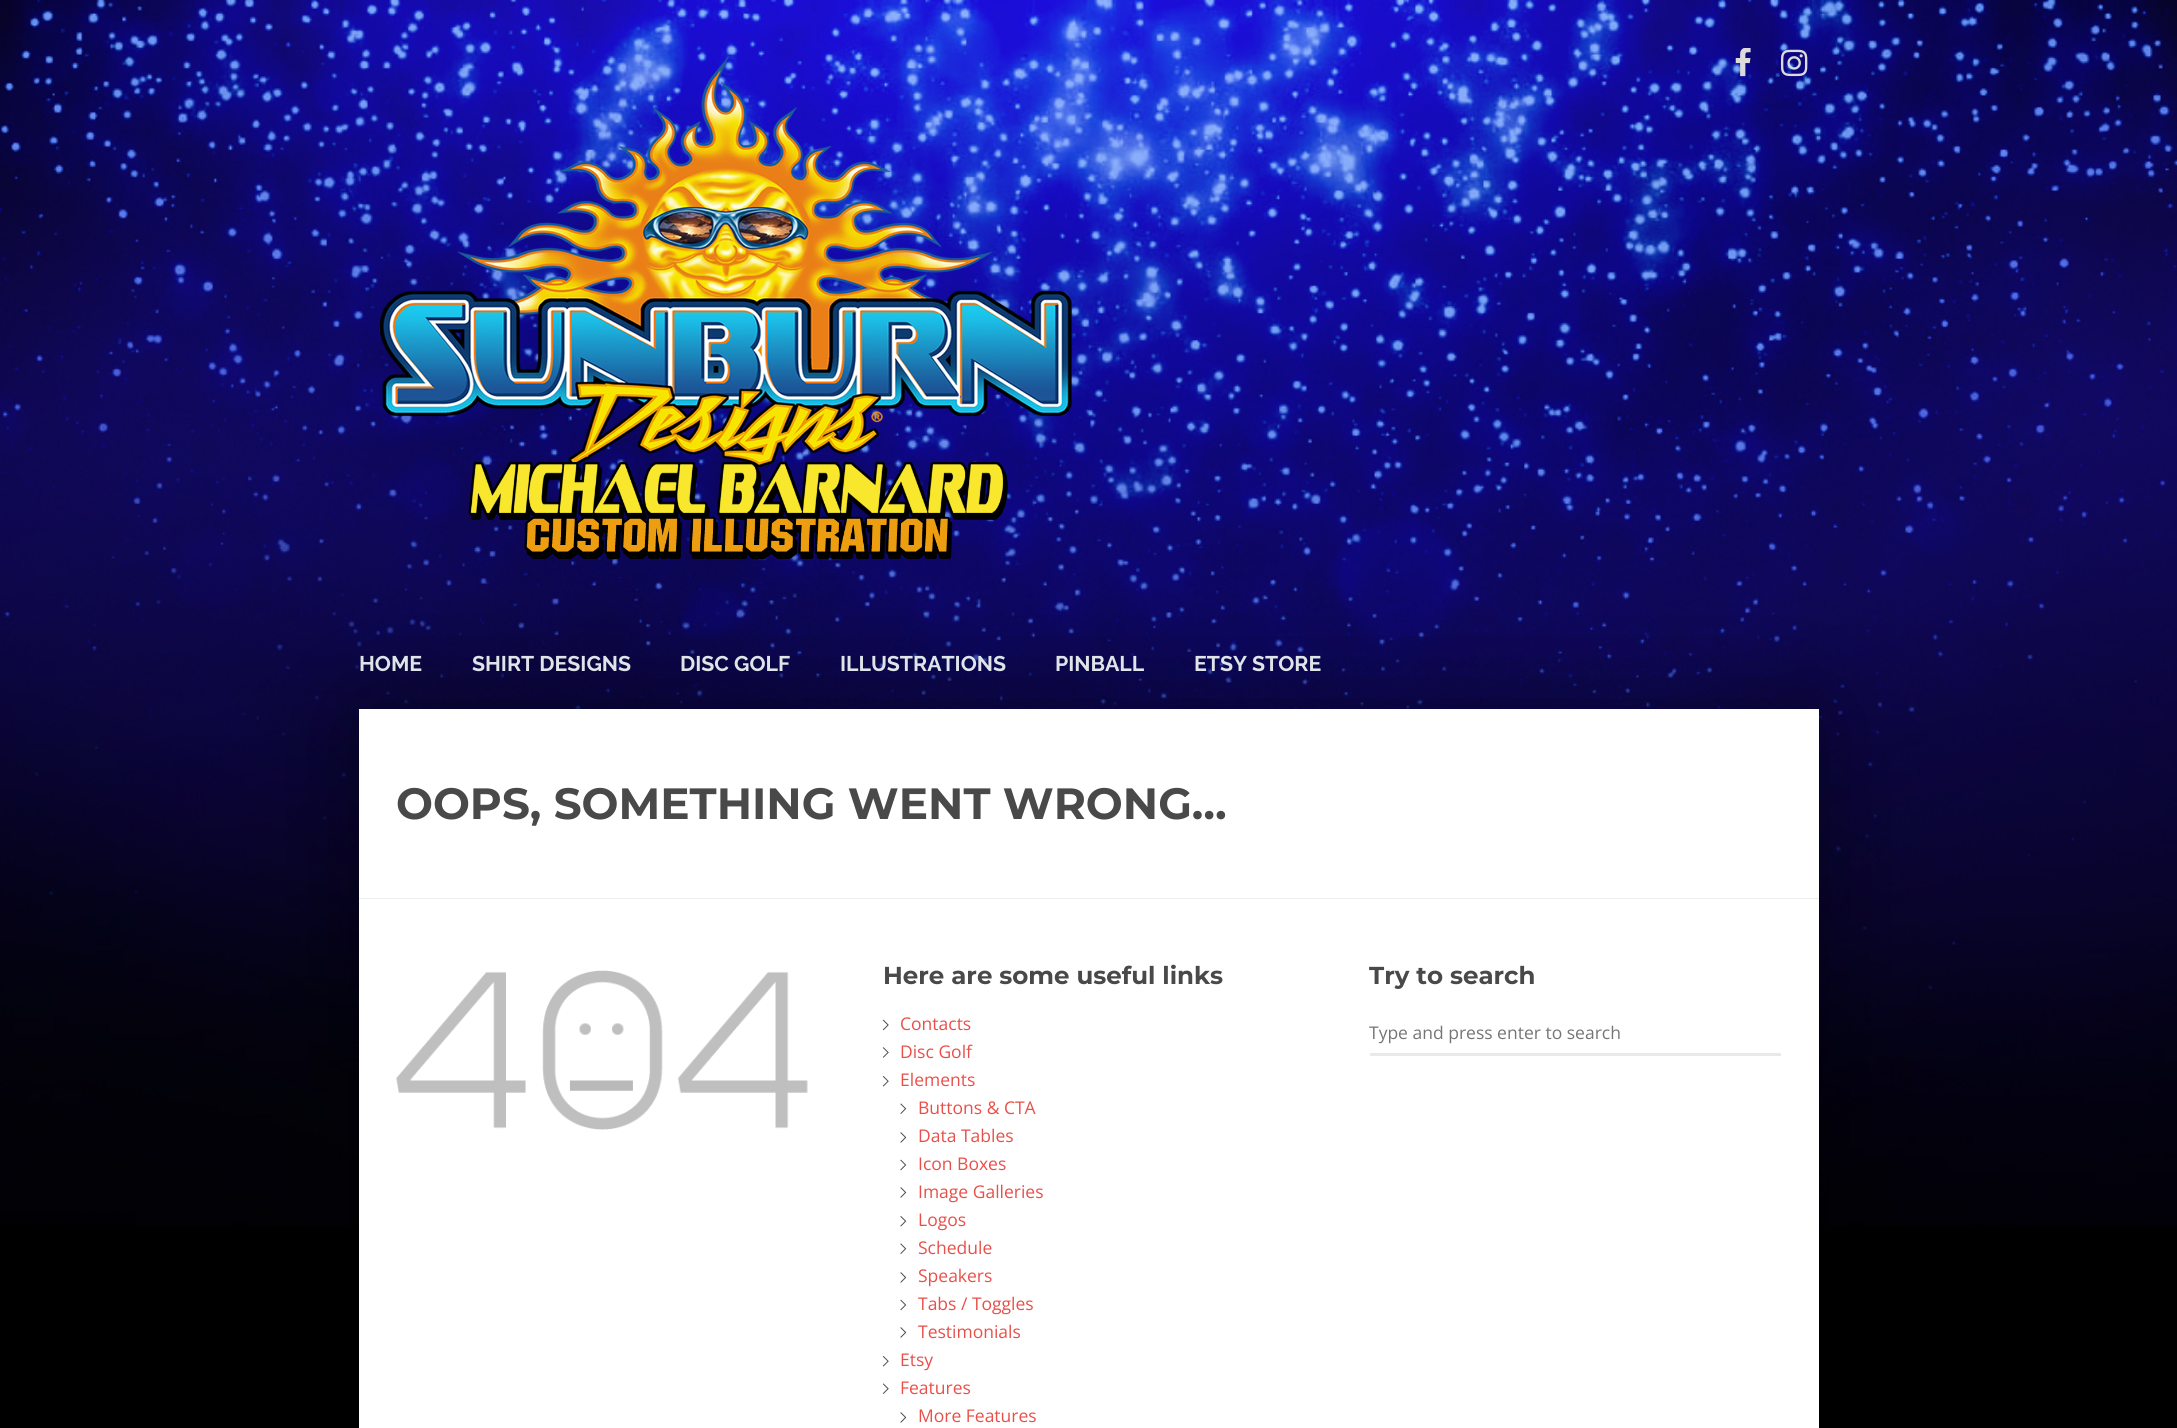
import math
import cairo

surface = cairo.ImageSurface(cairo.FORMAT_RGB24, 2177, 1428)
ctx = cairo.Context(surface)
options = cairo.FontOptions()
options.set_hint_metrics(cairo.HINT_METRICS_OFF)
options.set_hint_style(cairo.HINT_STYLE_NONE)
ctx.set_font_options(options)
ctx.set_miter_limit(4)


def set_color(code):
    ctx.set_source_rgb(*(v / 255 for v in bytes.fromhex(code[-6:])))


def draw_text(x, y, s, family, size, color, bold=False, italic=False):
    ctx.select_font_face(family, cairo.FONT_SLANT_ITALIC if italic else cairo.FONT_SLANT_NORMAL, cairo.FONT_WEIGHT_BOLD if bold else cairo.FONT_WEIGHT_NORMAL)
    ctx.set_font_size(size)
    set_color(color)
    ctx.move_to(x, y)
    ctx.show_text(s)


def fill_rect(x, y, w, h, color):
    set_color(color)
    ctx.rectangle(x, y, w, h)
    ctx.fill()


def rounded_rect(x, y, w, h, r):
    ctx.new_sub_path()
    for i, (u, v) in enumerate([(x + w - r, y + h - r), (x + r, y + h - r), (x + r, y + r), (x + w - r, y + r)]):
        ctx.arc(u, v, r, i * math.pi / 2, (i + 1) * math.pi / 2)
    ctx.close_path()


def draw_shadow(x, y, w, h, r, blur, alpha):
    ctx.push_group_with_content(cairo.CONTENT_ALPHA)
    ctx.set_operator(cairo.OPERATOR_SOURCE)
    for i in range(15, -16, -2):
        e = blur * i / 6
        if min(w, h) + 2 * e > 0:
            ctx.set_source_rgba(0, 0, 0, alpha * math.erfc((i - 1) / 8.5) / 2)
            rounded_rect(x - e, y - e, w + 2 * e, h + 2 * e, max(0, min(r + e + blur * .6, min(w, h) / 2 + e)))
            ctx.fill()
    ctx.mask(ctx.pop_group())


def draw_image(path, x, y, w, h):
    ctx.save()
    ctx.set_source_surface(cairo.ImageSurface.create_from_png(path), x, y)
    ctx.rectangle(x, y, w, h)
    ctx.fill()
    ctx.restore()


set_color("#000000")
ctx.paint()
draw_image("assets/img1.png", 0, 0, 2177, 1225)
draw_shadow(359, 709, 1460, 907, 0, 62.5, 0.5)
draw_image("assets/img2.png", 380, 56, 692, 503)
draw_image("assets/img3.png", 1735, 48, 16, 29)
draw_image("assets/img4.png", 1780, 49, 28, 28)
draw_text(359, 671, "HOME", "Raleway", 21.25, "#dee4e8", bold=True)
draw_text(472, 671, "SHIRT DESIGNS", "Raleway", 21.25, "#dee4e8", bold=True)
draw_text(680, 671, "DISC GOLF", "Raleway", 21.25, "#dee4e8", bold=True)
draw_text(840, 671, "ILLUSTRATIONS", "Raleway", 21.25, "#dee4e8", bold=True)
draw_text(1055, 671, "PINBALL", "Raleway", 21.25, "#dee4e8", bold=True)
draw_text(1194, 671, "ETSY STORE", "Raleway", 21.25, "#dee4e8", bold=True)
fill_rect(359, 709, 1460, 719, "#ffffff")
fill_rect(359, 898, 1460, 1, "#ededed")
draw_text(396, 819, "OOPS, SOMETHING WENT WRONG…", "Montserrat", 43.75, "#494949", bold=True)
draw_image("assets/img5.png", 396, 970, 412, 160)
draw_text(883, 984, "Here are some useful links", "Montserrat", 24.5, "#494949", bold=True)
draw_image("assets/img6.png", 882, 1019, 7, 12)
draw_text(900, 1030, "Contacts", "Open Sans", 17.5, "#e94f49")
draw_image("assets/img7.png", 882, 1047, 7, 11)
draw_text(900, 1058, "Disc Golf", "Open Sans", 17.5, "#e94f49")
draw_image("assets/img8.png", 882, 1076, 7, 11)
draw_text(900, 1086, "Elements", "Open Sans", 17.5, "#e94f49")
draw_image("assets/img9.png", 900, 1103, 7, 11)
draw_text(918, 1114, "Buttons & CTA", "Open Sans", 17.5, "#e94f49")
draw_image("assets/img10.png", 900, 1132, 7, 11)
draw_text(918, 1142, "Data Tables", "Open Sans", 17.5, "#e94f49")
draw_image("assets/img11.png", 900, 1159, 7, 12)
draw_text(918, 1170, "Icon Boxes", "Open Sans", 17.5, "#e94f49")
draw_image("assets/img10.png", 900, 1187, 7, 11)
draw_text(918, 1198, "Image Galleries", "Open Sans", 17.5, "#e94f49")
draw_image("assets/img12.png", 900, 1216, 7, 11)
draw_text(918, 1226, "Logos", "Open Sans", 17.5, "#e94f49")
draw_image("assets/img9.png", 900, 1243, 7, 11)
draw_text(918, 1254, "Schedule", "Open Sans", 17.5, "#e94f49")
draw_image("assets/img10.png", 900, 1272, 7, 11)
draw_text(918, 1282, "Speakers", "Open Sans", 17.5, "#e94f49")
draw_image("assets/img11.png", 900, 1299, 7, 12)
draw_text(918, 1310, "Tabs / Toggles", "Open Sans", 17.5, "#e94f49")
draw_image("assets/img10.png", 900, 1327, 7, 11)
draw_text(918, 1338, "Testimonials", "Open Sans", 17.5, "#e94f49")
draw_image("assets/img8.png", 882, 1356, 7, 11)
draw_text(900, 1366, "Etsy", "Open Sans", 17.5, "#e94f49")
draw_image("assets/img13.png", 882, 1383, 7, 11)
draw_text(900, 1394, "Features", "Open Sans", 17.5, "#e94f49")
draw_image("assets/img10.png", 900, 1412, 7, 11)
draw_text(918, 1422, "More Features", "Open Sans", 17.5, "#e94f49")
draw_text(1369, 984, "Try to search", "Montserrat", 24.5, "#494949", bold=True)
fill_rect(1370, 1053, 411, 3, "#e9e9e9")
draw_text(1369, 1039, "Type and press enter to search", "Open Sans", 17.5, "#757575")
surface.write_to_png("output.png")
